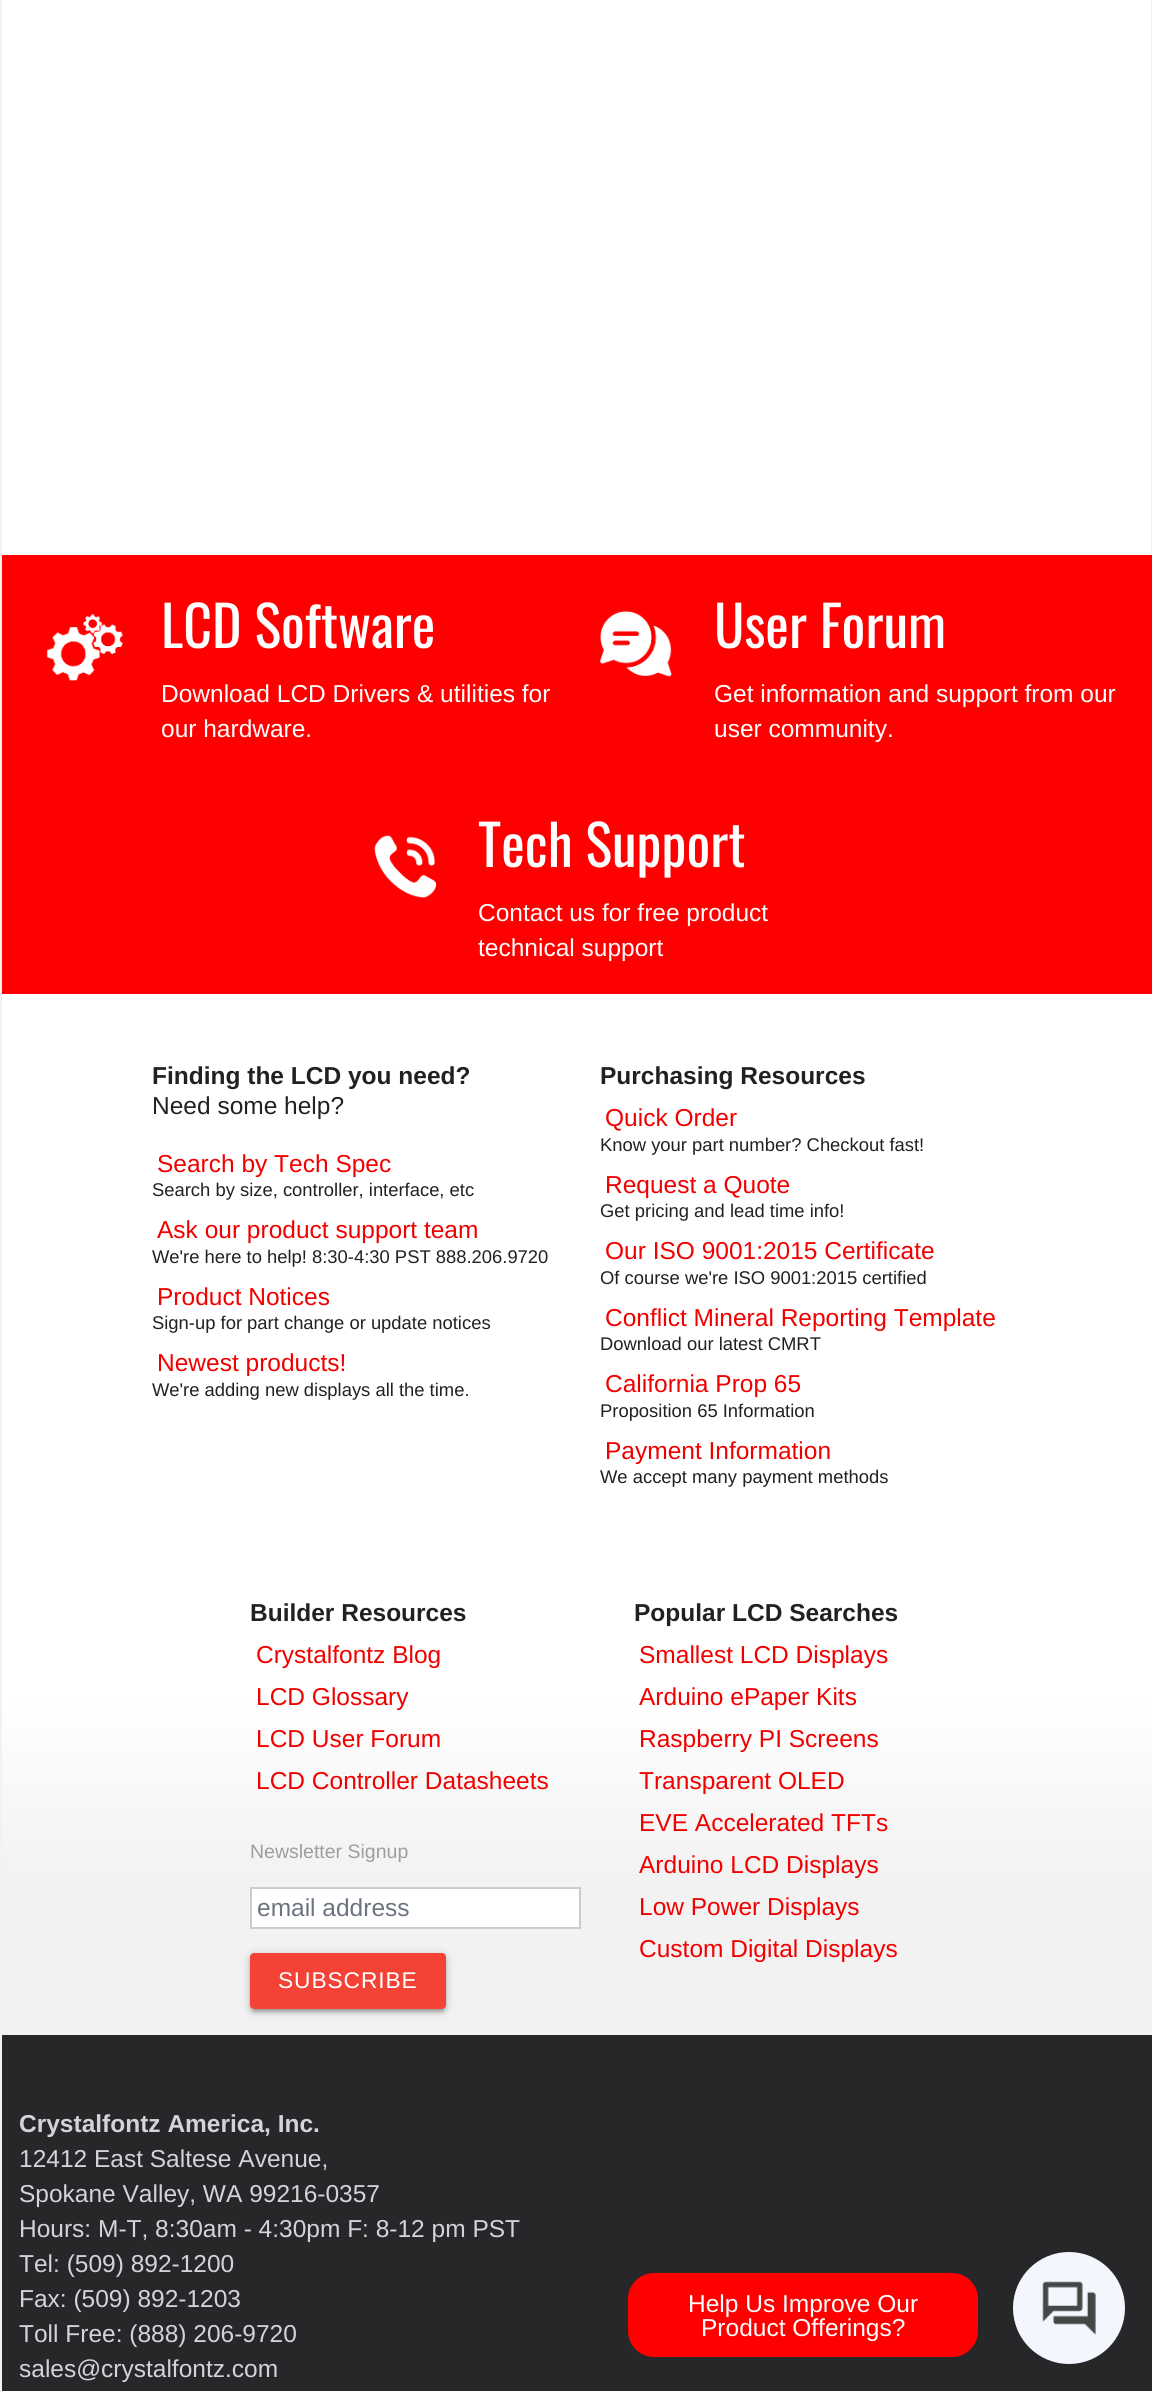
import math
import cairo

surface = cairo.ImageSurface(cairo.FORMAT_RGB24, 1152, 2391)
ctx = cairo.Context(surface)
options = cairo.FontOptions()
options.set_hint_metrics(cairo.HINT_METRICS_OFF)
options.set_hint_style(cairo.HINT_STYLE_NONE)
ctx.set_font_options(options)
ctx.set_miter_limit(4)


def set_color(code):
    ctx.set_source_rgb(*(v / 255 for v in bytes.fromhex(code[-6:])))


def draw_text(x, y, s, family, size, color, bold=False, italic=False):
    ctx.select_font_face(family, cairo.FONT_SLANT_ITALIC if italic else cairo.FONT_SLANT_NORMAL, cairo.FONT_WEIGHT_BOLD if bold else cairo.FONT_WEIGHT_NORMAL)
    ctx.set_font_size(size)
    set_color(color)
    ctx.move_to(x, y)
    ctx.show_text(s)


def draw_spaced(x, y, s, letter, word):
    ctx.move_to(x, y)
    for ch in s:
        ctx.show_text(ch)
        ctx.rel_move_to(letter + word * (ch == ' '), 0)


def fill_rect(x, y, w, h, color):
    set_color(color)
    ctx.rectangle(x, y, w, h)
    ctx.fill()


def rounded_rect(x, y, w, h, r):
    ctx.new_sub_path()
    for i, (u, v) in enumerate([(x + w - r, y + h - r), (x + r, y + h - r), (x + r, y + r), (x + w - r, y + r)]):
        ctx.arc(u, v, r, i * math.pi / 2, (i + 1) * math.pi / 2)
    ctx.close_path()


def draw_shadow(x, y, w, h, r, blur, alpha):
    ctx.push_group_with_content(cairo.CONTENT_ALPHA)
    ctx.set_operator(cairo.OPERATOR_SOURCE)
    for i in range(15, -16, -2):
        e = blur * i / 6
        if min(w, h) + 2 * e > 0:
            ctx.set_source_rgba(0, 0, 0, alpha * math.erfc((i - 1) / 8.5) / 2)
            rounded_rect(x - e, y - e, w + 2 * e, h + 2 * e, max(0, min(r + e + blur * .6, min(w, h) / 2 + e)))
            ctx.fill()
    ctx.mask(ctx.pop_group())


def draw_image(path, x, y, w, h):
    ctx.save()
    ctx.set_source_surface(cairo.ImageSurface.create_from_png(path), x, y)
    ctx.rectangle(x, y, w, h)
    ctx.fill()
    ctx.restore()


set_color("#ffffff")
ctx.paint()
ctx.rectangle(1, -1, 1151, 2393)
set_color("#f2f2f2")
ctx.stroke()
fill_rect(2, 555, 1150, 439, "#ff0000")
draw_image("assets/img1.png", 46, 613, 77, 68)
draw_text(161, 648, "LCD Software", "Oswald", 56, "#ffffff")
draw_text(161, 702, "Download LCD Drivers & utilities for", "Liberation Sans", 24.5, "#ffffff")
draw_text(161, 737, "our hardware.", "Liberation Sans", 24.5, "#ffffff")
draw_image("assets/img2.png", 599, 611, 73, 66)
draw_text(714, 648, "User Forum", "Oswald", 56, "#ffffff")
draw_text(714, 702, "Get information and support from our", "Liberation Sans", 24.5, "#ffffff")
draw_text(714, 737, "user community.", "Liberation Sans", 24.5, "#ffffff")
draw_image("assets/img3.png", 374, 835, 63, 63)
draw_text(478, 867, "Tech Support", "Oswald", 56, "#ffffff")
draw_text(478, 921, "Contact us for free product", "Liberation Sans", 24.5, "#ffffff")
draw_text(478, 956, "technical support", "Liberation Sans", 24.5, "#ffffff")
gradient = cairo.LinearGradient(577, 994, 577, 2035)
gradient.add_color_stop_rgba(0.67, 1, 1, 1, 1)
gradient.add_color_stop_rgba(0.85, 0.949, 0.949, 0.949, 1)
ctx.set_source(gradient)
ctx.rectangle(2, 994, 1150, 1041)
ctx.fill()
draw_text(152, 1084, "Finding the LCD you need?", "Liberation Sans", 24.5, "#212121", bold=True)
draw_text(152, 1114, "Need some help?", "Liberation Sans", 24.5, "#212121")
draw_text(157, 1172, "Search by Tech Spec", "Liberation Sans", 24.5, "#f20000")
draw_text(152, 1196, "Search by size, controller, interface, etc", "Liberation Sans", 18.4, "#212121")
draw_text(157, 1238, "Ask our product support team", "Liberation Sans", 24.5, "#f20000")
draw_text(152, 1263, "We're here to help! 8:30-4:30 PST 888.206.9720", "Liberation Sans", 18.4, "#212121")
draw_text(157, 1305, "Product Notices", "Liberation Sans", 24.5, "#f20000")
draw_text(152, 1329, "Sign-up for part change or update notices", "Liberation Sans", 18.4, "#212121")
draw_text(157, 1371, "Newest products!", "Liberation Sans", 24.5, "#f20000")
draw_text(152, 1396, "We're adding new displays all the time.", "Liberation Sans", 18.4, "#212121")
draw_text(600, 1084, "Purchasing Resources", "Liberation Sans", 24.5, "#212121", bold=True)
draw_text(605, 1126, "Quick Order", "Liberation Sans", 24.5, "#f20000")
draw_text(600, 1151, "Know your part number? Checkout fast!", "Liberation Sans", 18.4, "#212121")
draw_text(605, 1193, "Request a Quote", "Liberation Sans", 24.5, "#f20000")
draw_text(600, 1217, "Get pricing and lead time info!", "Liberation Sans", 18.4, "#212121")
draw_text(605, 1259, "Our ISO 9001:2015 Certificate", "Liberation Sans", 24.5, "#f20000")
draw_text(600, 1284, "Of course we're ISO 9001:2015 certified", "Liberation Sans", 18.4, "#212121")
draw_text(605, 1326, "Conflict Mineral Reporting Template", "Liberation Sans", 24.5, "#f20000")
draw_text(600, 1350, "Download our latest CMRT", "Liberation Sans", 18.4, "#212121")
draw_text(605, 1392, "California Prop 65", "Liberation Sans", 24.5, "#f20000")
draw_text(600, 1417, "Proposition 65 Information", "Liberation Sans", 18.4, "#212121")
draw_text(605, 1459, "Payment Information", "Liberation Sans", 24.5, "#f20000")
draw_text(600, 1483, "We accept many payment methods", "Liberation Sans", 18.4, "#212121")
draw_text(250, 1621, "Builder Resources", "Liberation Sans", 24.5, "#212121", bold=True)
draw_text(256, 1663, "Crystalfontz Blog", "Liberation Sans", 24.5, "#f20000")
draw_text(256, 1705, "LCD Glossary", "Liberation Sans", 24.5, "#f20000")
draw_text(256, 1747, "LCD User Forum", "Liberation Sans", 24.5, "#f20000")
draw_text(256, 1789, "LCD Controller Datasheets", "Liberation Sans", 24.5, "#f20000")
draw_text(250, 1858, "Newsletter Signup", "Liberation Sans", 19.5, "#9e9e9e")
set_color("#ffffff")
ctx.rectangle(251, 1888, 329, 40)
ctx.fill_preserve()
set_color("#cccccc")
ctx.stroke()
draw_text(257, 1916, "email address", "Liberation Sans", 24.5, "#6b7280")
set_color("#000000")
draw_shadow(250, 1955, 196, 56, 4, 4.5, 0.2)
draw_shadow(254, 1962, 189, 49, 0, 1, 0.12)
draw_shadow(250, 1957, 196, 56, 4, 2, 0.14)
set_color("#f44336")
rounded_rect(250, 1953, 196, 56, 4)
ctx.fill()
ctx.set_font_size(22.75)
set_color("#ffffff")
draw_spaced(278, 1988, "SUBSCRIBE", 0.9, 0)
draw_text(634, 1621, "Popular LCD Searches", "Liberation Sans", 24.5, "#212121", bold=True)
draw_text(639, 1663, "Smallest LCD Displays", "Liberation Sans", 24.5, "#f20000")
draw_text(639, 1705, "Arduino ePaper Kits", "Liberation Sans", 24.5, "#f20000")
draw_text(639, 1747, "Raspberry PI Screens", "Liberation Sans", 24.5, "#f20000")
draw_text(639, 1789, "Transparent OLED", "Liberation Sans", 24.5, "#f20000")
draw_text(639, 1831, "EVE Accelerated TFTs", "Liberation Sans", 24.5, "#f20000")
draw_text(639, 1873, "Arduino LCD Displays", "Liberation Sans", 24.5, "#f20000")
draw_text(639, 1915, "Low Power Displays", "Liberation Sans", 24.5, "#f20000")
draw_text(639, 1957, "Custom Digital Displays", "Liberation Sans", 24.5, "#f20000")
fill_rect(2, 2035, 1150, 356, "#27272a")
draw_text(19, 2132, "Crystalfontz America, Inc.", "Liberation Sans", 24.5, "#d4d4d8", bold=True)
draw_text(19, 2167, "12412 East Saltese Avenue,", "Liberation Sans", 24.5, "#d4d4d8")
draw_text(19, 2202, "Spokane Valley, WA 99216-0357", "Liberation Sans", 24.5, "#d4d4d8")
draw_text(19, 2237, "Hours: M-T, 8:30am - 4:30pm F: 8-12 pm PST", "Liberation Sans", 24.5, "#d4d4d8")
draw_text(19, 2272, "Tel: (509) 892-1200", "Liberation Sans", 24.5, "#d4d4d8")
draw_text(19, 2307, "Fax: (509) 892-1203", "Liberation Sans", 24.5, "#d4d4d8")
draw_text(19, 2342, "Toll Free: (888) 206-9720", "Liberation Sans", 24.5, "#d4d4d8")
draw_text(19, 2377, "sales@crystalfontz.com", "Liberation Sans", 24.5, "#d4d4d8")
set_color("#ff0000")
rounded_rect(628, 2273, 350, 84, 26)
ctx.fill()
draw_text(688, 2312, "Help Us Improve Our", "Liberation Sans", 24.5, "#ffffff")
draw_text(701, 2336, "Product Offerings?", "Liberation Sans", 24.5, "#ffffff")
set_color("#f3f6fc")
ctx.new_path()
ctx.arc(1069, 2308, 56, 0, 2 * math.pi)
ctx.fill()
draw_image("assets/img4.png", 1042, 2281, 54, 54)
surface.write_to_png("output.png")
